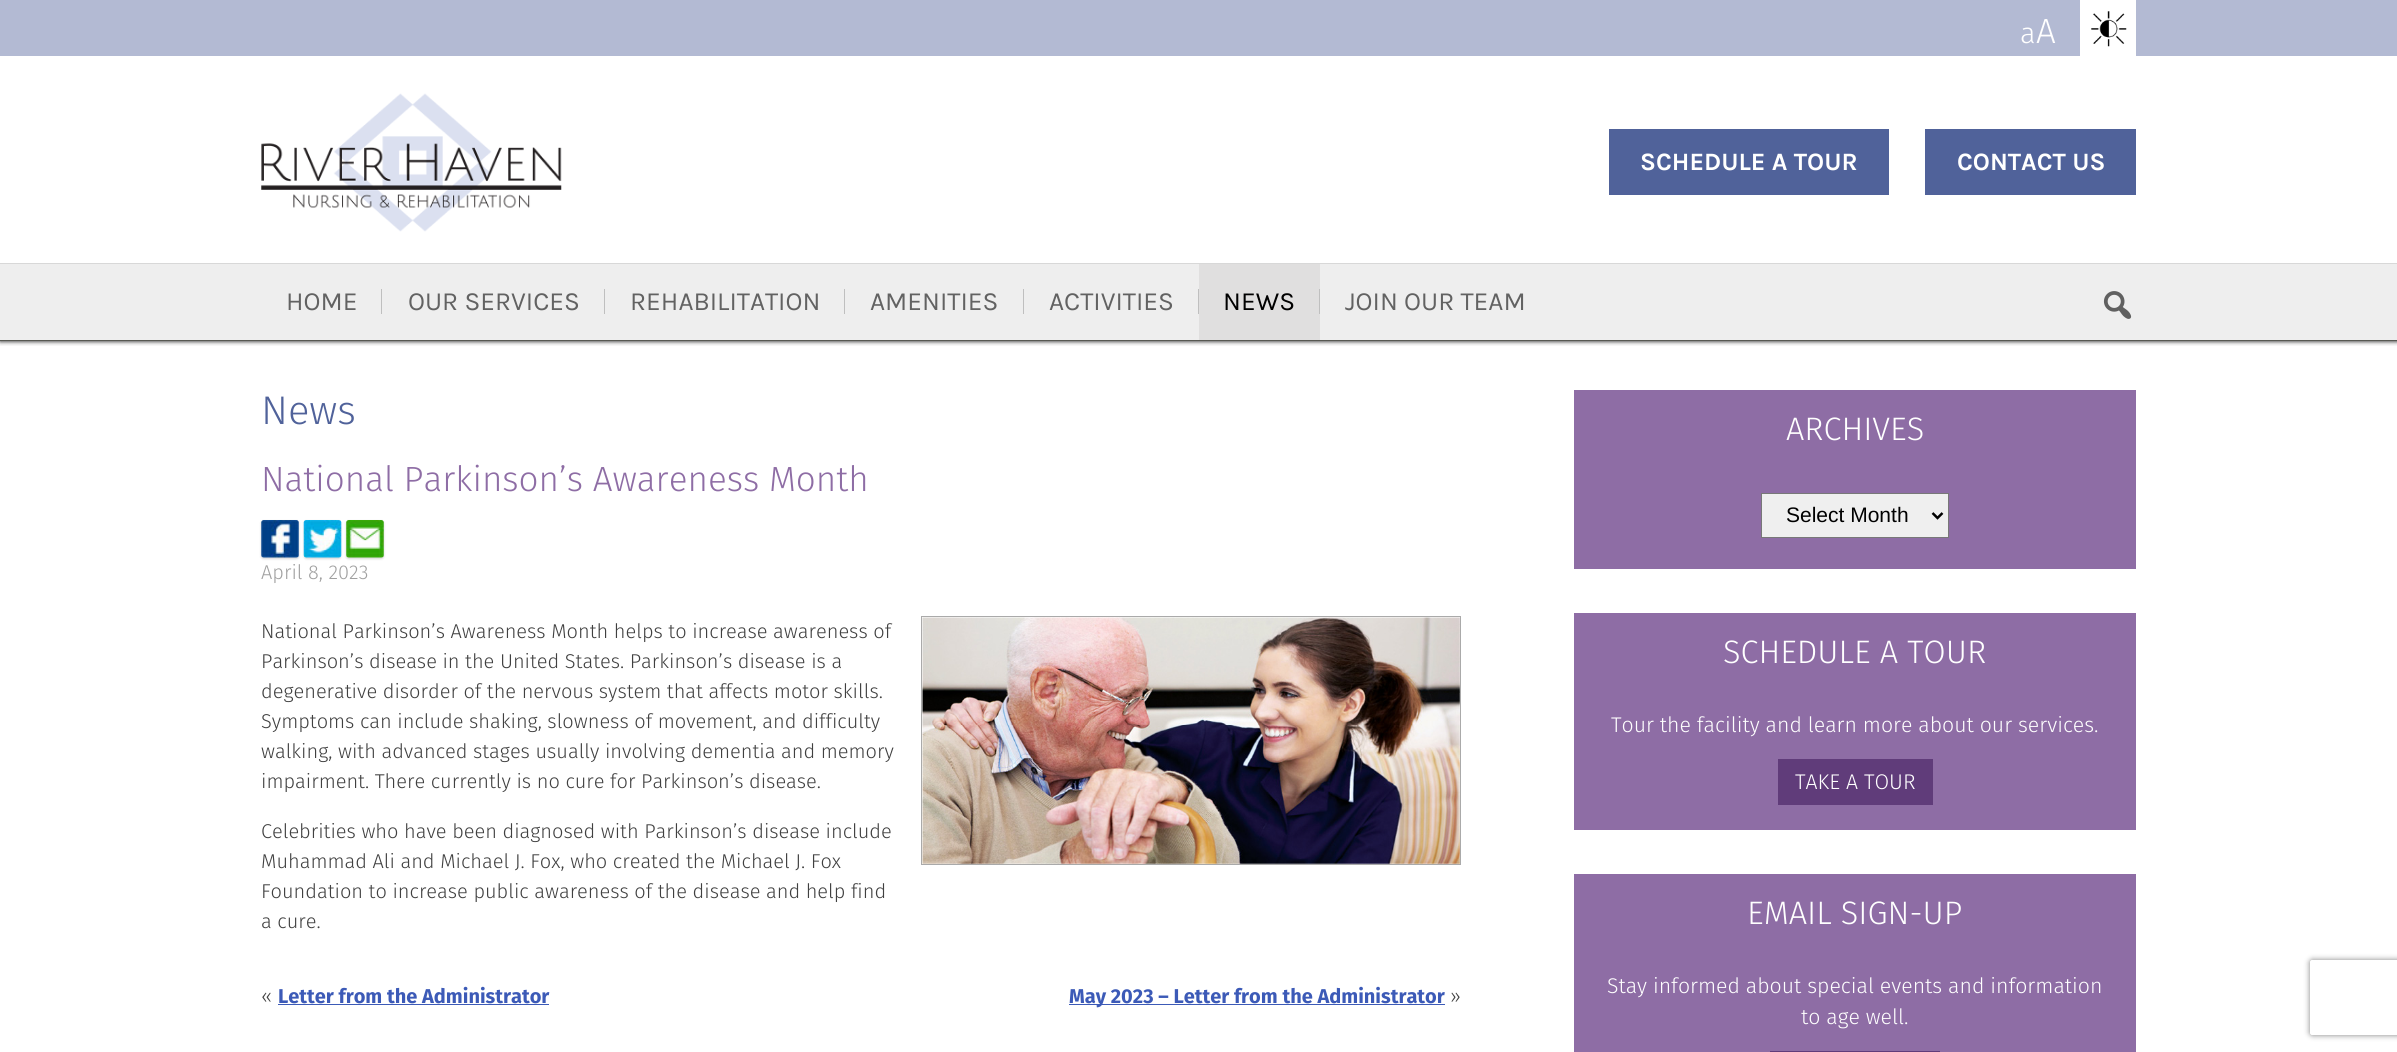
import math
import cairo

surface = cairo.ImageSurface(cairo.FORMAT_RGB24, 2397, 1052)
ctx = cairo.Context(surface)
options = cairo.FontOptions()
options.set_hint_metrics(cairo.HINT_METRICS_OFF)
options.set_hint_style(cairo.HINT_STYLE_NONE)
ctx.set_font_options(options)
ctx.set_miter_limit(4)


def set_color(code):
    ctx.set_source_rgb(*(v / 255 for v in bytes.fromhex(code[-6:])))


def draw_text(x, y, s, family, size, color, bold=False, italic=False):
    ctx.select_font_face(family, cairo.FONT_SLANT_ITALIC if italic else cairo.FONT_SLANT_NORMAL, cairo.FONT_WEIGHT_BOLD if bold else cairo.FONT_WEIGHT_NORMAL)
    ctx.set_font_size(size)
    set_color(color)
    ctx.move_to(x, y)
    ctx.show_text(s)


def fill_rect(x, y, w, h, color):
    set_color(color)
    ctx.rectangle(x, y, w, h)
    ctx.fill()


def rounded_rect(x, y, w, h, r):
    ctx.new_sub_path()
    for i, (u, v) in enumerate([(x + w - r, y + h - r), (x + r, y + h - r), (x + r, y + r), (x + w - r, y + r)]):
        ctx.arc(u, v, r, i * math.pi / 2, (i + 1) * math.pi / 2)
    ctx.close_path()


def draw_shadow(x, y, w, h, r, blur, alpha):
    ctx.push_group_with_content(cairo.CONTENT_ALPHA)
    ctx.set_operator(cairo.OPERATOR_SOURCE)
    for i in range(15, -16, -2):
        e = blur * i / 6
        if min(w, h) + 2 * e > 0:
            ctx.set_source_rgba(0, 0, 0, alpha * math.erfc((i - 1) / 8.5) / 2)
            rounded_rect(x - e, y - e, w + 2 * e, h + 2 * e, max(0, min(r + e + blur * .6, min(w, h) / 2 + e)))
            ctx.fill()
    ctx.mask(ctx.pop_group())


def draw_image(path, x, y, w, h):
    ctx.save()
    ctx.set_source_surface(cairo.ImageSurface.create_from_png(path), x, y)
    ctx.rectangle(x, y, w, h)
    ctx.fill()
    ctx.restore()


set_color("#ffffff")
ctx.paint()
ctx.save()
ctx.rectangle(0, 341, 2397, 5)
ctx.clip()
set_color("#000000")
draw_shadow(0, 1, 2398, 340, 0, 2.5, 1)
ctx.restore()
fill_rect(0, 0, 2397, 56, "#b3bad3")
draw_text(2020, 43, "a", "Fira Sans Light", 29, "#ffffff")
draw_text(2036, 43, "A", "Fira Sans Light", 35, "#ffffff")
fill_rect(2080, 0, 56, 56, "#ffffff")
draw_image("assets/img1.png", 2091, 11, 36, 36)
draw_image("assets/img2.png", 261, 93, 301, 139)
fill_rect(1609, 129, 280, 66, "#50629a")
draw_text(1640, 170, "SCHEDULE A TOUR", "Karla", 25, "#ffffff", bold=True)
fill_rect(1925, 129, 211, 66, "#50629a")
draw_text(1957, 170, "CONTACT US", "Karla", 25, "#ffffff", bold=True)
fill_rect(0, 264, 2397, 76, "#eeeeee")
fill_rect(0, 263, 2397, 1, "#d8d8d8")
fill_rect(0, 340, 2397, 1, "#575852")
draw_text(286, 310, "HOME", "Karla", 26.25, "#626262")
fill_rect(381, 289, 1, 25, "#bfbfbf")
draw_text(408, 310, "OUR SERVICES", "Karla", 26.25, "#626262")
fill_rect(604, 289, 1, 25, "#bfbfbf")
draw_text(630, 310, "REHABILITATION", "Karla", 26.25, "#626262")
fill_rect(844, 289, 1, 25, "#bfbfbf")
draw_text(870, 310, "AMENITIES", "Karla", 26.25, "#626262")
fill_rect(1023, 289, 1, 25, "#bfbfbf")
draw_text(1049, 310, "ACTIVITIES", "Karla", 26.25, "#626262")
fill_rect(1198, 289, 1, 25, "#bfbfbf")
fill_rect(1199, 264, 121, 76, "#e0dfdf")
draw_text(1223, 310, "NEWS", "Karla", 26.25, "#000000")
fill_rect(1319, 289, 1, 25, "#bfbfbf")
draw_text(1345, 310, "JOIN OUR TEAM", "Karla", 26.25, "#626262")
draw_image("assets/img3.png", 2103, 291, 29, 28)
draw_text(261, 424, "News", "Fira Sans Light", 40, "#50629a")
draw_text(261, 491, "National Parkinson’s Awareness Month", "Fira Sans Light", 35, "#8e6da5")
set_color("#000000")
draw_shadow(261, 521, 38, 38, 2.5, 1, 0.15)
draw_image("assets/img4.png", 261, 520, 38, 38)
draw_shadow(304, 521, 37, 38, 2.5, 1, 0.15)
draw_image("assets/img5.png", 303, 520, 39, 38)
draw_shadow(346, 521, 38, 38, 2.5, 1, 0.15)
draw_image("assets/img6.png", 346, 520, 38, 38)
draw_text(261, 579, "April 8, 2023", "Fira Sans Light", 20, "#a0a0a0")
draw_text(261, 638, "National Parkinson’s Awareness Month helps to increase awareness of", "Fira Sans Light", 20, "#404040")
draw_text(261, 668, "Parkinson’s disease in the United States. Parkinson’s disease is a", "Fira Sans Light", 20, "#404040")
draw_text(261, 698, "degenerative disorder of the nervous system that affects motor skills.", "Fira Sans Light", 20, "#404040")
draw_text(261, 728, "Symptoms can include shaking, slowness of movement, and difficulty", "Fira Sans Light", 20, "#404040")
draw_text(261, 758, "walking, with advanced stages usually involving dementia and memory", "Fira Sans Light", 20, "#404040")
draw_text(261, 788, "impairment. There currently is no cure for Parkinson’s disease.", "Fira Sans Light", 20, "#404040")
ctx.rectangle(921.5, 616.5, 539, 248)
set_color("#aaaaaa")
ctx.set_line_width(1)
ctx.stroke()
draw_image("assets/img7.png", 922, 617, 538, 247)
draw_text(261, 838, "Celebrities who have been diagnosed with Parkinson’s disease include", "Fira Sans Light", 20, "#404040")
draw_text(261, 868, "Muhammad Ali and Michael J. Fox, who created the Michael J. Fox", "Fira Sans Light", 20, "#404040")
draw_text(261, 898, "Foundation to increase public awareness of the disease and help find", "Fira Sans Light", 20, "#404040")
draw_text(261, 928, "a cure.", "Fira Sans Light", 20, "#404040")
draw_text(261, 1003, "«", "Fira Sans Light", 20, "#404040")
draw_text(278, 1003, "Letter from the Administrator", "Fira Sans", 20, "#3c5ab7", bold=True)
fill_rect(278, 1004, 271, 1, "#3c5ab7")
fill_rect(1069, 1004, 376, 1, "#3c5ab7")
draw_text(1069, 1003, "May 2023 – Letter from the Administrator", "Fira Sans", 20, "#3c5ab7", bold=True)
draw_text(1450, 1003, "»", "Fira Sans Light", 20, "#404040")
fill_rect(1574, 390, 562, 179, "#8e6da5")
draw_text(1786, 440, "ARCHIVES", "Fira Sans Light", 32.5, "#ffffff")
set_color("#efefef")
ctx.rectangle(1761.5, 493.5, 187, 44)
ctx.fill_preserve()
set_color("#787878")
ctx.stroke()
ctx.new_path()
ctx.move_to(1932.5, 513)
ctx.line_to(1937.5, 518)
ctx.line_to(1942.5, 513)
set_color("#000000")
ctx.set_line_width(2.5)
ctx.stroke()
draw_text(1786, 522, "Select Month", "Liberation Sans", 21, "#000000")
fill_rect(1574, 613, 562, 217, "#8e6da5")
draw_text(1723, 663, "SCHEDULE A TOUR", "Fira Sans Light", 32.5, "#ffffff")
draw_text(1611, 732, "Tour the facility and learn more about our services.", "Fira Sans Light", 21.25, "#ffffff")
fill_rect(1778, 759, 155, 46, "#603c7a")
draw_text(1795, 789, "TAKE A TOUR", "Fira Sans Light", 21.25, "#ffffff")
fill_rect(1574, 874, 562, 178, "#8e6da5")
draw_text(1747, 924, "EMAIL SIGN-UP", "Fira Sans Light", 32.5, "#ffffff")
draw_text(1607, 993, "Stay informed about special events and information", "Fira Sans Light", 21.25, "#ffffff")
draw_text(1801, 1024, "to age well.", "Fira Sans Light", 21.25, "#ffffff")
fill_rect(1770, 1051, 170, 1, "#603c7a")
ctx.save()
ctx.set_fill_rule(cairo.FILL_RULE_EVEN_ODD)
ctx.new_path()
ctx.move_to(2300, 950)
ctx.line_to(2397, 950)
ctx.line_to(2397, 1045)
ctx.line_to(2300, 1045)
ctx.close_path()
ctx.move_to(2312.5, 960)
ctx.line_to(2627.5, 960)
ctx.curve_to(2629, 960, 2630, 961, 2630, 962.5)
ctx.line_to(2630, 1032.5)
ctx.curve_to(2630, 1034, 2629, 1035, 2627.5, 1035)
ctx.line_to(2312.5, 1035)
ctx.curve_to(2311, 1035, 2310, 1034, 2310, 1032.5)
ctx.line_to(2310, 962.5)
ctx.curve_to(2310, 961, 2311, 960, 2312.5, 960)
ctx.close_path()
ctx.clip()
set_color("#808080")
draw_shadow(2310, 960, 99, 75, 2.5, 3, 1)
ctx.restore()
surface.write_to_png("output.png")
